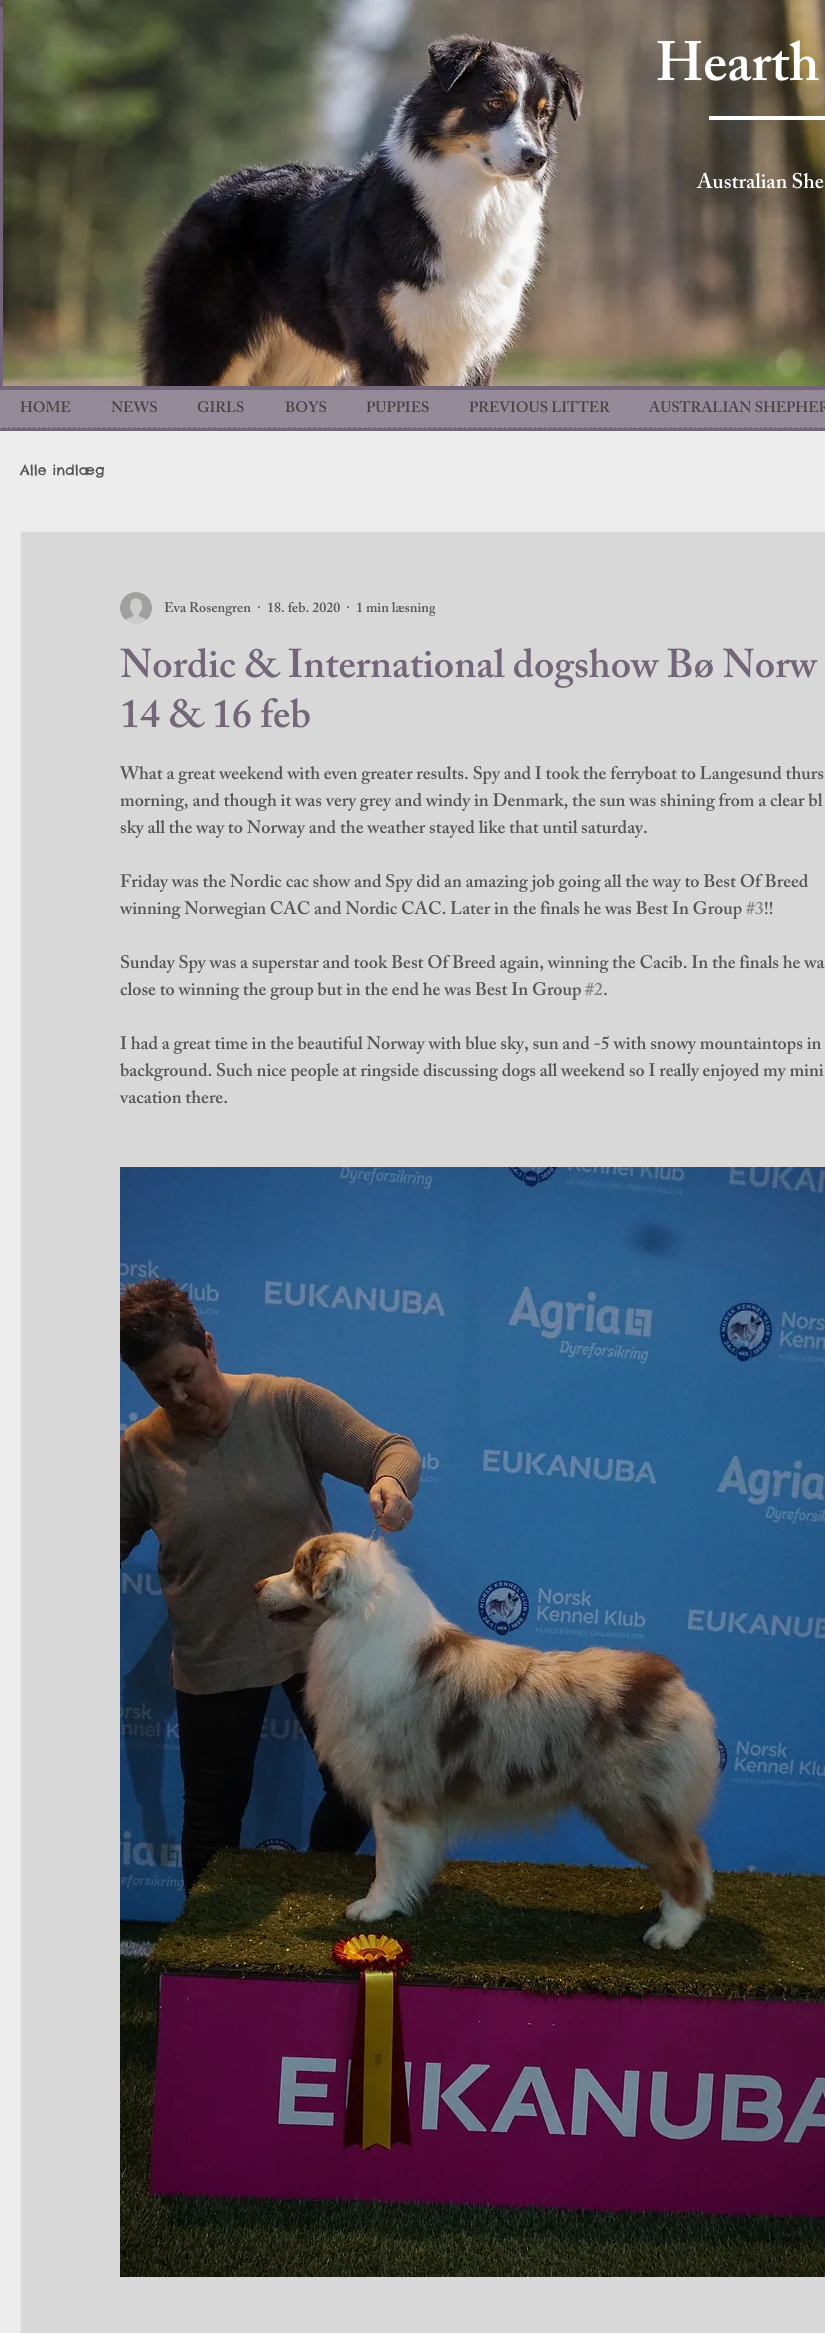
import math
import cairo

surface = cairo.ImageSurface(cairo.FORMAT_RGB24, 825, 2333)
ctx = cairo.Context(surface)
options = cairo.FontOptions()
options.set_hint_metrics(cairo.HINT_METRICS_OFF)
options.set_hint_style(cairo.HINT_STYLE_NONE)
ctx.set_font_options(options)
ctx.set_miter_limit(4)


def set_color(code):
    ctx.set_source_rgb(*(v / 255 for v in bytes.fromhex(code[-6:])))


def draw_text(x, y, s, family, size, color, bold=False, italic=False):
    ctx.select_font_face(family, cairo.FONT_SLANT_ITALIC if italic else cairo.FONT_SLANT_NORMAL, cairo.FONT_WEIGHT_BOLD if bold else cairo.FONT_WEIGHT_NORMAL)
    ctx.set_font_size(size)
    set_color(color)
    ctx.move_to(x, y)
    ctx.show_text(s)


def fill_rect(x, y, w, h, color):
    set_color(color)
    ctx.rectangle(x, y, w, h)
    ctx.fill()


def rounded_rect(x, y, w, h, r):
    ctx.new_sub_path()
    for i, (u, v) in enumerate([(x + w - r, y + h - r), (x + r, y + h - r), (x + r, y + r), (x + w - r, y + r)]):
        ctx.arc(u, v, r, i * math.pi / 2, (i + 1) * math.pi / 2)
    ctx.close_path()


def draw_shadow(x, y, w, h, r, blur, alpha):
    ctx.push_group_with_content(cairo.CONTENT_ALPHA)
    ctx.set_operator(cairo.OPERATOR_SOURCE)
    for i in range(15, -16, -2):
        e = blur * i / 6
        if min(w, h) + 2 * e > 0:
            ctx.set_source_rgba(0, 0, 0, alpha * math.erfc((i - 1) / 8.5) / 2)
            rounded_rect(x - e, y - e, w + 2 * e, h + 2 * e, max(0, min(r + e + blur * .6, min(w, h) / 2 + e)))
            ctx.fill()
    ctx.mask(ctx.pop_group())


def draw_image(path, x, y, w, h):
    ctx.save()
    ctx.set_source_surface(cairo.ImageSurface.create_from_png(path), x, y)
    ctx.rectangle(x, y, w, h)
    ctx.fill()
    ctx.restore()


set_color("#736678")
ctx.paint()
set_color("#000000")
draw_shadow(0, -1, 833, 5, 0, 2.5, 0.7)
fill_rect(0, 0, 3, 4, "#5d5a5f")
draw_image("assets/img1.png", 0, 0, 3, 4)
draw_image("assets/img2.png", 3, 0, 822, 386)
draw_text(656, 80, "Hearth", "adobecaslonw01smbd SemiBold", 55, "#ffffff")
fill_rect(709, 116, 116, 4, "#ffffff")
draw_text(697, 188, "Australian She", "adobecaslonw01smbd SemiBold", 21, "#ffffff")
fill_rect(0, 390, 825, 37, "#958b98")
draw_text(20, 412, "HOME", "adobecaslonw01smbd SemiBold", 15, "#444444")
draw_text(111, 412, "NEWS", "adobecaslonw01smbd SemiBold", 15, "#444444")
draw_text(197, 412, "GIRLS", "adobecaslonw01smbd SemiBold", 15, "#444444")
draw_text(285, 412, "BOYS", "adobecaslonw01smbd SemiBold", 15, "#444444")
draw_text(366, 412, "PUPPIES", "adobecaslonw01smbd SemiBold", 15, "#444444")
draw_text(469, 412, "PREVIOUS LITTER", "adobecaslonw01smbd SemiBold", 15, "#444444")
draw_text(649, 412, "AUSTRALIAN SHEPHER", "adobecaslonw01smbd SemiBold", 15, "#444444")
ctx.new_path()
ctx.move_to(0, 427.5)
ctx.line_to(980, 427.5)
set_color("#dd7779")
ctx.set_line_width(1)
ctx.set_dash([3, 2.01])
ctx.stroke()
fill_rect(0, 431, 825, 1902, "#ededed")
draw_text(20, 475, "Alle indlæg", "Chelsea Market", 14, "#565656")
set_color("#d8d8d8")
ctx.rectangle(20.5, 531.5, 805, 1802)
ctx.fill_preserve()
set_color("#e8e8e8")
ctx.set_dash([])
ctx.stroke()
draw_image("assets/img3.png", 120, 592, 32, 32)
draw_text(164, 612, "Eva Rosengren", "adobecaslonw01smbd SemiBold", 14, "#565656")
draw_text(257, 612, "·", "adobecaslonw01smbd SemiBold", 14, "#565656")
draw_text(267, 612, "18. feb. 2020", "adobecaslonw01smbd SemiBold", 14, "#565656")
draw_text(346, 612, "·", "adobecaslonw01smbd SemiBold", 14, "#565656")
ctx.save()
ctx.rectangle(340, 598, 95, 21)
ctx.clip()
draw_text(356, 612, "1 min læsning", "adobecaslonw01smbd SemiBold", 14, "#565656")
ctx.restore()
draw_text(120, 677, "Nordic & International dogshow Bø Norw", "adobecaslonw01smbd SemiBold", 40, "#736678")
draw_text(120, 727, "14 & 16 feb", "adobecaslonw01smbd SemiBold", 40, "#736678")
draw_text(120, 779, "What a great weekend with even greater results. Spy and I took the ferryboat to Langesund thurs", "adobecaslonw01smbd SemiBold", 18, "#565656")
draw_text(120, 806, "morning, and though it was very grey and windy in Denmark, the sun was shining from a clear bl", "adobecaslonw01smbd SemiBold", 18, "#565656")
draw_text(120, 833, "sky all the way to Norway and the weather stayed like that until saturday.", "adobecaslonw01smbd SemiBold", 18, "#565656")
draw_text(120, 887, "Friday was the Nordic cac show and Spy did an amazing job going all the way to Best Of Breed", "adobecaslonw01smbd SemiBold", 18, "#565656")
draw_text(120, 914, "winning Norwegian CAC and Nordic CAC. Later in the finals he was Best In Group", "adobecaslonw01smbd SemiBold", 18, "#565656")
draw_text(746, 914, "#3", "adobecaslonw01smbd SemiBold", 18, "#828282")
draw_text(764, 914, "!!", "adobecaslonw01smbd SemiBold", 18, "#565656")
draw_text(120, 968, "Sunday Spy was a superstar and took Best Of Breed again, winning the Cacib. In the finals he wa", "adobecaslonw01smbd SemiBold", 18, "#565656")
draw_text(120, 995, "close to winning the group but in the end he was Best In Group", "adobecaslonw01smbd SemiBold", 18, "#565656")
draw_text(585, 995, "#2", "adobecaslonw01smbd SemiBold", 18, "#828282")
draw_text(603, 995, ".", "adobecaslonw01smbd SemiBold", 18, "#565656")
draw_text(120, 1049, "I had a great time in the beautiful Norway with blue sky, sun and -5 with snowy mountaintops in", "adobecaslonw01smbd SemiBold", 18, "#565656")
draw_text(120, 1076, "background. Such nice people at ringside discussing dogs all weekend so I really enjoyed my mini", "adobecaslonw01smbd SemiBold", 18, "#565656")
draw_text(120, 1103, "vacation there.", "adobecaslonw01smbd SemiBold", 18, "#565656")
draw_image("assets/img4.png", 120, 1167, 705, 1110)
surface.write_to_png("output.png")
